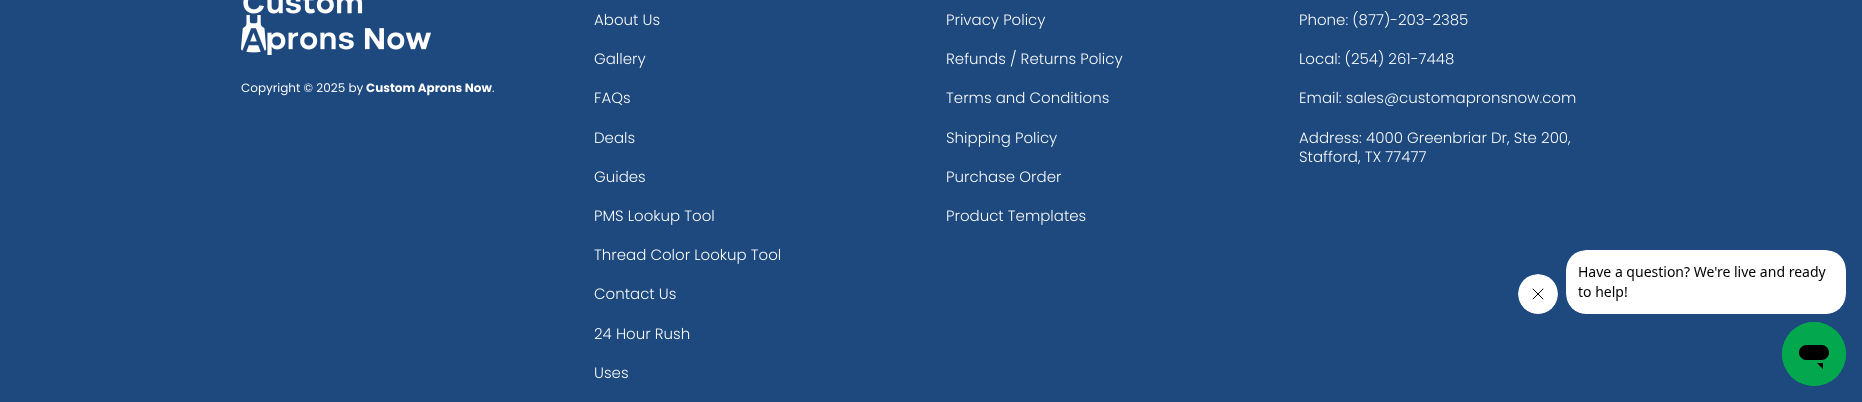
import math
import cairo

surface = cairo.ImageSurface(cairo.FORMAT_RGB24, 1862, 402)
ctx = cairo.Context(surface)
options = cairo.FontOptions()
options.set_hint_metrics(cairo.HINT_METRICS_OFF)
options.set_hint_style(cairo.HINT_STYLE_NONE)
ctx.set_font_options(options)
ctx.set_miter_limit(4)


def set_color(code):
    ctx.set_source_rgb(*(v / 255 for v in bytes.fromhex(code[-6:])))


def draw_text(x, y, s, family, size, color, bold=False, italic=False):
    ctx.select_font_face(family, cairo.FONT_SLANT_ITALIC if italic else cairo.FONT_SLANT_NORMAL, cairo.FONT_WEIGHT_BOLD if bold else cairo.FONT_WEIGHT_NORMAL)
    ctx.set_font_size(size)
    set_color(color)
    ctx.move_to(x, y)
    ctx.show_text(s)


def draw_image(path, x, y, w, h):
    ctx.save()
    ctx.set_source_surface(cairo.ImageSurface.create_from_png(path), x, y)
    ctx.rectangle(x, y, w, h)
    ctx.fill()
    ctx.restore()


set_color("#1d497e")
ctx.paint()
draw_image("assets/img1.png", 241, 0, 190, 55)
draw_text(241, 92, "Copyright © 2025 by", "Poppins", 12, "#ffffff")
draw_text(366, 92, "Custom Aprons Now", "Poppins", 12, "#ffffff", bold=True)
draw_text(492, 92, ".", "Poppins", 12, "#ffffff")
draw_text(594, 25, "About Us", "Poppins Light", 15, "#ffffff")
draw_text(594, 64, "Gallery", "Poppins Light", 15, "#ffffff")
draw_text(594, 103, "FAQs", "Poppins Light", 15, "#ffffff")
draw_text(594, 143, "Deals", "Poppins Light", 15, "#ffffff")
draw_text(594, 182, "Guides", "Poppins Light", 15, "#ffffff")
draw_text(594, 221, "PMS Lookup Tool", "Poppins Light", 15, "#ffffff")
draw_text(594, 260, "Thread Color Lookup Tool", "Poppins Light", 15, "#ffffff")
draw_text(594, 299, "Contact Us", "Poppins Light", 15, "#ffffff")
draw_text(594, 339, "24 Hour Rush", "Poppins Light", 15, "#ffffff")
draw_text(594, 378, "Uses", "Poppins Light", 15, "#ffffff")
draw_text(946, 25, "Privacy Policy", "Poppins Light", 15, "#ffffff")
draw_text(946, 64, "Refunds / Returns Policy", "Poppins Light", 15, "#ffffff")
draw_text(946, 103, "Terms and Conditions", "Poppins Light", 15, "#ffffff")
draw_text(946, 143, "Shipping Policy", "Poppins Light", 15, "#ffffff")
draw_text(946, 182, "Purchase Order", "Poppins Light", 15, "#ffffff")
draw_text(946, 221, "Product Templates", "Poppins Light", 15, "#ffffff")
draw_text(1299, 25, "Phone: (877)-203-2385", "Poppins Light", 15, "#ffffff")
draw_text(1299, 64, "Local: (254) 261-7448", "Poppins Light", 15, "#ffffff")
draw_text(1299, 103, "Email: sales@customapronsnow.com", "Poppins Light", 15, "#ffffff")
draw_text(1299, 143, "Address: 4000 Greenbriar Dr, Ste 200,", "Poppins Light", 15, "#ffffff")
draw_text(1299, 162, "Stafford, TX 77477", "Poppins Light", 15, "#ffffff")
draw_image("assets/img2.png", 1518, 274, 40, 40)
draw_image("assets/img3.png", 1566, 250, 280, 64)
draw_image("assets/img4.png", 1782, 322, 64, 64)
surface.write_to_png("output.png")
